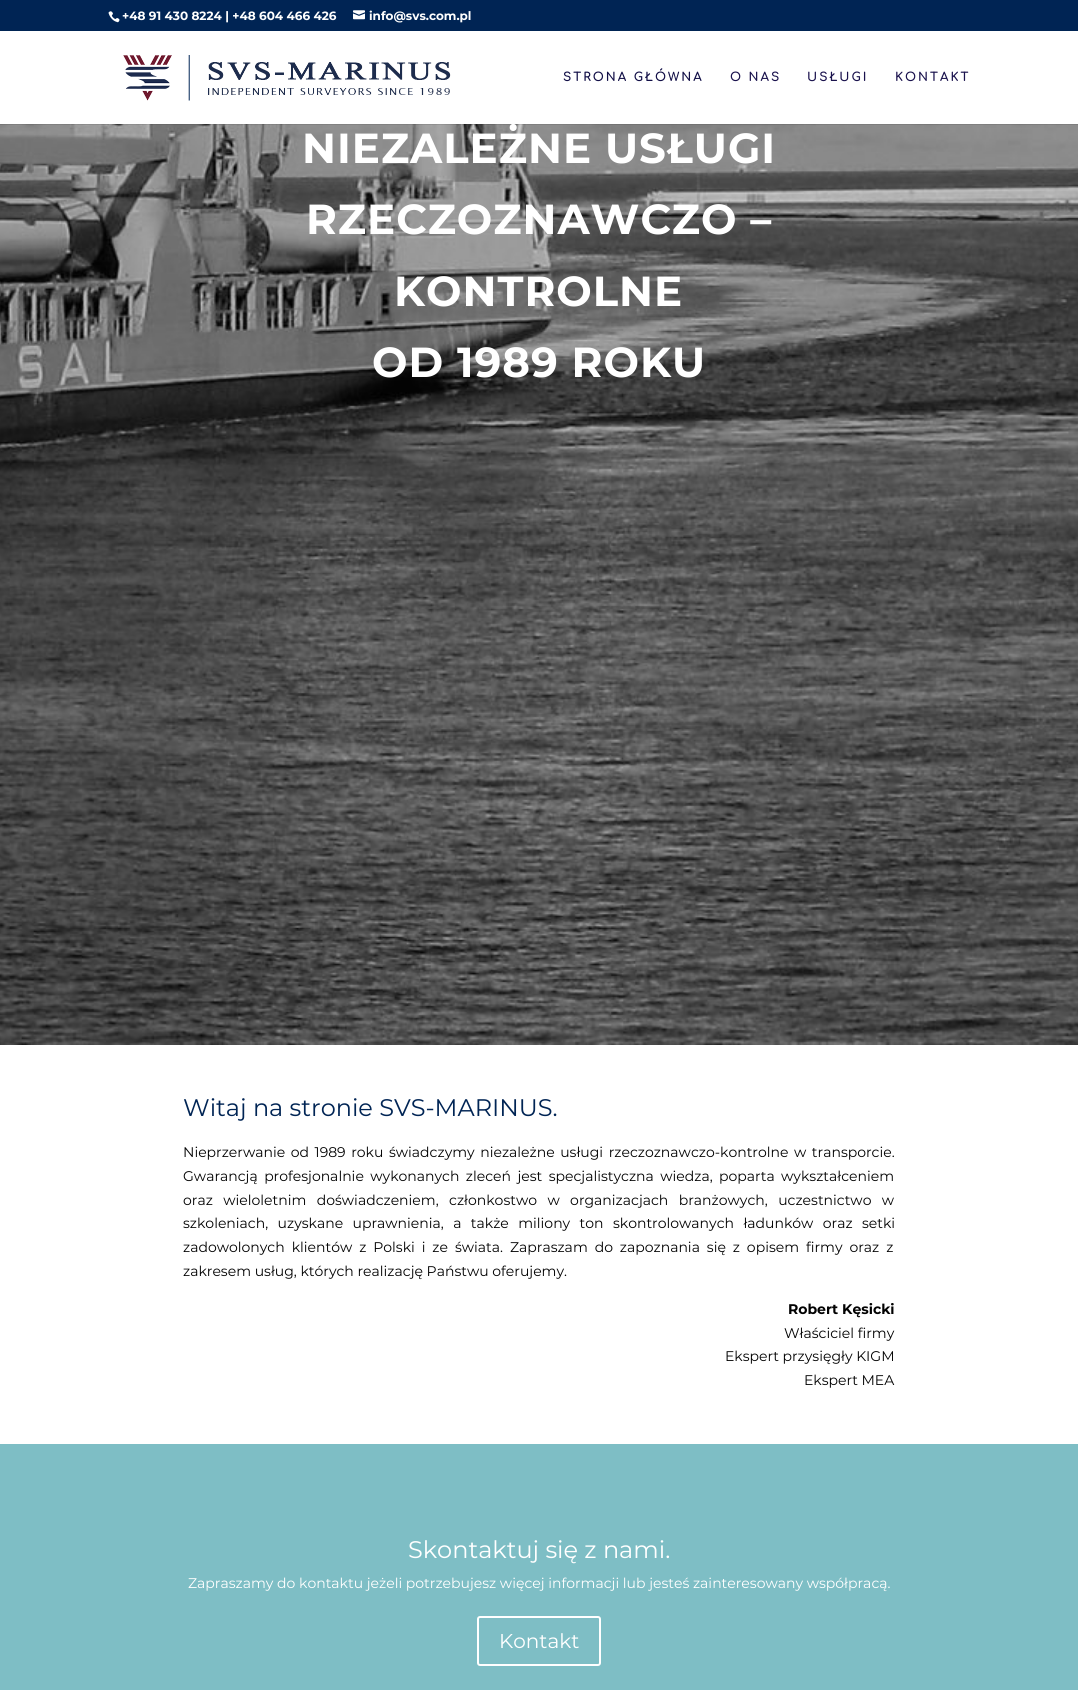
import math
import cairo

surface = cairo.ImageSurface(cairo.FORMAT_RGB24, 1078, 1690)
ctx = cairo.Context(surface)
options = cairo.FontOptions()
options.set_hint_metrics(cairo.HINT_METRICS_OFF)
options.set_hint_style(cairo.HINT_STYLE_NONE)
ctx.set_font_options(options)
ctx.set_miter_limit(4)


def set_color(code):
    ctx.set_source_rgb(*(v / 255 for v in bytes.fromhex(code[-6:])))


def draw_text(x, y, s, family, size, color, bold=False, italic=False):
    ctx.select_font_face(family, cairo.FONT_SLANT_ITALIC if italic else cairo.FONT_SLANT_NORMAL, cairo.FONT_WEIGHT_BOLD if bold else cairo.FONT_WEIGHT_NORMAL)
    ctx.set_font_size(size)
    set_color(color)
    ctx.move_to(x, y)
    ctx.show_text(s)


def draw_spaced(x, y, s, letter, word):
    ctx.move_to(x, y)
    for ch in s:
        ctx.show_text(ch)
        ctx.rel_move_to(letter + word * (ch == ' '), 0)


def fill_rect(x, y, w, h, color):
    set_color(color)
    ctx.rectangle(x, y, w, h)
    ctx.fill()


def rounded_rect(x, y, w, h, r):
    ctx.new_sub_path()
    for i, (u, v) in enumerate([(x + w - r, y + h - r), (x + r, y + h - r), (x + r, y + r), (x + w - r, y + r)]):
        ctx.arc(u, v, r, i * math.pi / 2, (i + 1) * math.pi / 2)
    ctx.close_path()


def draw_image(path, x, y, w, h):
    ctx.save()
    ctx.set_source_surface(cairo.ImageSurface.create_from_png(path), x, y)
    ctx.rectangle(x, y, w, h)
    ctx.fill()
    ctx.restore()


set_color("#ffffff")
ctx.paint()
fill_rect(0, 0, 1078, 31, "#002454")
draw_image("assets/img1.png", 108, 11, 12, 12)
draw_text(122, 20, "+48 91 430 8224 | +48 604 466 426", "Montserrat", 12, "#ffffff", bold=True)
draw_image("assets/img2.png", 353, 10, 12, 10)
draw_text(369, 20, "info@svs.com.pl", "Montserrat", 12, "#ffffff", bold=True)
draw_image("assets/img4.png", 0, 124, 1078, 921)
ctx.set_source_rgba(0, 0, 0, 0.1)
ctx.rectangle(0, 124, 1078, 1)
ctx.fill()
draw_image("assets/img3.png", 123, 55, 328, 46)
ctx.select_font_face("Comfortaa", cairo.FONT_SLANT_NORMAL, cairo.FONT_WEIGHT_BOLD)
set_color("#120f47")
draw_spaced(563, 81, "STRONA GŁÓWNA", 2, 0)
set_color("#1a124d")
draw_spaced(730, 81, "O NAS", 2, 0)
draw_spaced(807, 81, "USŁUGI", 2, 0)
draw_spaced(895, 81, "KONTAKT", 2, 0)
ctx.select_font_face("Montserrat", cairo.FONT_SLANT_NORMAL, cairo.FONT_WEIGHT_BOLD)
ctx.set_font_size(42)
set_color("#ffffff")
draw_spaced(302, 163, "NIEZALEŻNE USŁUGI", 1, 0)
draw_spaced(306, 234, "RZECZOZNAWCZO –", 1, 0)
draw_spaced(394, 306, "KONTROLNE", 1, 0)
draw_spaced(372, 377, "OD 1989 ROKU", 1, 0)
draw_text(183, 1116, "Witaj na stronie SVS-MARINUS.", "Montserrat", 24, "#002454")
ctx.set_font_size(14)
set_color("#020202")
draw_spaced(183, 1157, "Nieprzerwanie od 1989 roku świadczymy niezależne usługi rzeczoznawczo-kontrolne w transporcie.", 0, 1.9)
draw_spaced(183, 1181, "Gwarancją profesjonalnie wykonanych zleceń jest specjalistyczna wiedza, poparta wykształceniem", 0, 2.75)
draw_spaced(183, 1205, "oraz wieloletnim doświadczeniem, członkostwo w organizacjach branżowych, uczestnictwo w", 0, 6.75)
draw_spaced(183, 1228, "szkoleniach, uzyskane uprawnienia, a także miliony ton skontrolowanych ładunków oraz setki", 0, 5.75)
draw_spaced(183, 1252, "zadowolonych klientów z Polski i ze świata. Zapraszam do zapoznania się z opisem firmy oraz z", 0, 3.25)
draw_text(183, 1276, "zakresem usług, których realizację Państwu oferujemy.", "Montserrat", 14, "#020202")
draw_text(788, 1314, "Robert Kęsicki", "Montserrat", 14, "#020202", bold=True)
draw_text(784, 1338, "Właściciel firmy", "Montserrat", 14, "#020202")
draw_text(725, 1361, "Ekspert przysięgły KIGM", "Montserrat", 14, "#020202")
draw_text(804, 1385, "Ekspert MEA", "Montserrat", 14, "#020202")
fill_rect(0, 1444, 1078, 246, "#7ebec5")
draw_text(408, 1558, "Skontaktuj się z nami.", "Montserrat", 24, "#ffffff")
draw_text(188, 1588, "Zapraszamy do kontaktu jeżeli potrzebujesz więcej informacji lub jesteś zainteresowany współpracą.", "Montserrat", 14, "#ffffff")
rounded_rect(478, 1617, 122, 48, 2)
ctx.stroke()
draw_text(499, 1648, "Kontakt", "Montserrat", 20, "#ffffff")
surface.write_to_png("output.png")
